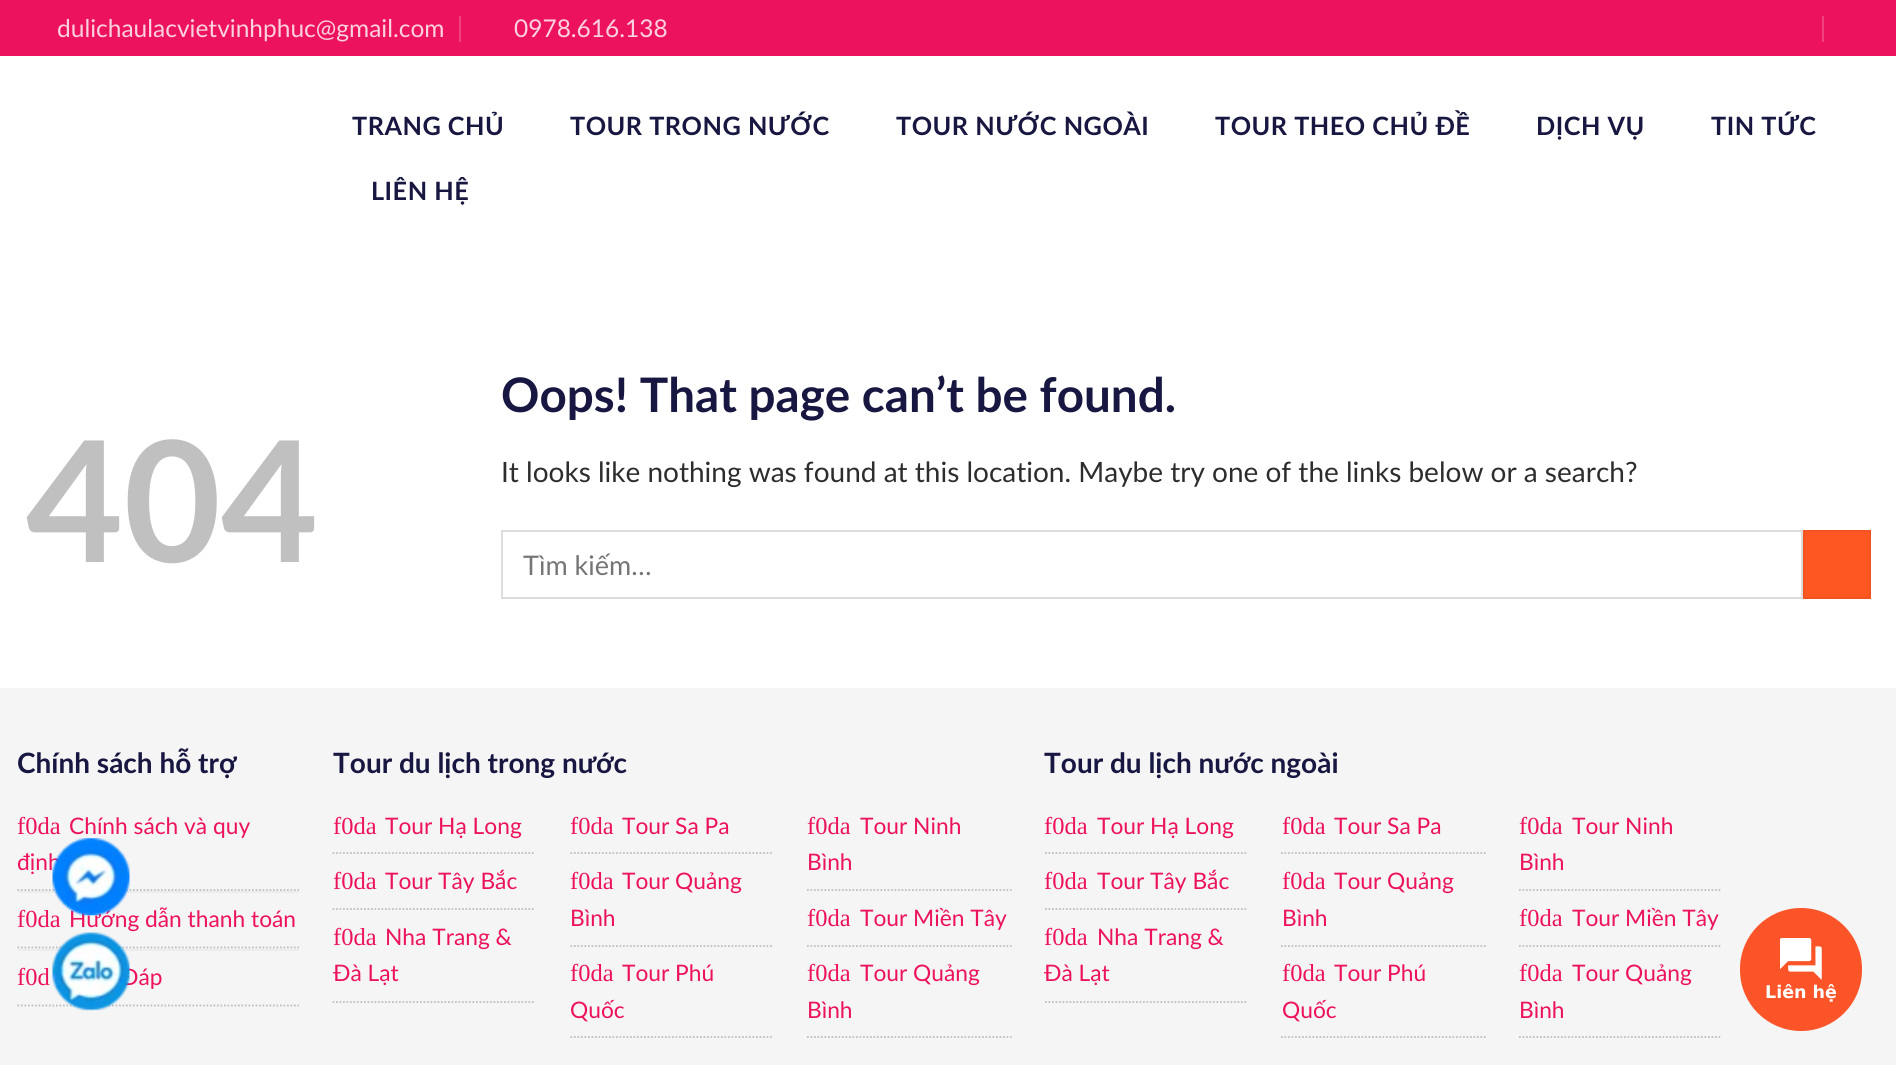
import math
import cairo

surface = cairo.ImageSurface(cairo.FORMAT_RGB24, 1896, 1065)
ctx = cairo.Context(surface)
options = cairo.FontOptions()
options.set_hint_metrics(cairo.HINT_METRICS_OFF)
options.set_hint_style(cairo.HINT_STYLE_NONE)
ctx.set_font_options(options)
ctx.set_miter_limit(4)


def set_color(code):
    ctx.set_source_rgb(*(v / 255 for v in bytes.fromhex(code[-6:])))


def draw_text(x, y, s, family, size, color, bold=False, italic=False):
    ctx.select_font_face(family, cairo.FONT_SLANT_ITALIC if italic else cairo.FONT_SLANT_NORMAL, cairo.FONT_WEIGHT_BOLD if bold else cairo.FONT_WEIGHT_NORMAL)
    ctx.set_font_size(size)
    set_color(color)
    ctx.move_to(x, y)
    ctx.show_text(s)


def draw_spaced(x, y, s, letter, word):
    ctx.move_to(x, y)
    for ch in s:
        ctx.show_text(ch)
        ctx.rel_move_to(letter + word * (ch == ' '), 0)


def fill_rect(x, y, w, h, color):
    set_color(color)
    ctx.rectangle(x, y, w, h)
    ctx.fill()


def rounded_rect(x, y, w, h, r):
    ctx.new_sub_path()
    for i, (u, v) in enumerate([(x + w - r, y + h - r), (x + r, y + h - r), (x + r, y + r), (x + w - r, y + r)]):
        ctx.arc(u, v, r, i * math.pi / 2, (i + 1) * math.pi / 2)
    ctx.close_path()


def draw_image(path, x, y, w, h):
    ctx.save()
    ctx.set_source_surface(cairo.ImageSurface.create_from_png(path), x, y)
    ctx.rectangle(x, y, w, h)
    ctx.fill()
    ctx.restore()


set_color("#ffffff")
ctx.paint()
fill_rect(0, 0, 1896, 56, "#ed125d")
draw_text(57, 37, "dulichaulacvietvinhphuc@gmail.com", "Lato", 24.5, "#fbd0df")
fill_rect(459, 16, 2, 26, "#f1417d")
draw_text(514, 37, "0978.616.138", "Lato", 24.5, "#fbd0df")
fill_rect(1822, 16, 2, 26, "#f1417d")
ctx.select_font_face("Lato", cairo.FONT_SLANT_NORMAL, cairo.FONT_WEIGHT_BOLD)
ctx.set_font_size(25.25)
set_color("#181741")
draw_spaced(352, 135, "TRANG CHỦ", 0.5, 0)
draw_spaced(570, 135, "TOUR TRONG NƯỚC", 0.5, 0)
draw_spaced(896, 135, "TOUR NƯỚC NGOÀI", 0.5, 0)
draw_spaced(1215, 135, "TOUR THEO CHỦ ĐỀ", 0.5, 0)
draw_spaced(1536, 135, "DỊCH VỤ", 0.5, 0)
draw_spaced(1711, 135, "TIN TỨC", 0.5, 0)
draw_spaced(371, 200, "LIÊN HỆ", 0.5, 0)
draw_text(26, 562, "404", "Lato", 168, "#c0c0c0", bold=True)
draw_text(501, 412, "Oops! That page can’t be found.", "Lato", 47.6, "#181741", bold=True)
draw_text(501, 482, "It looks like nothing was found at this location. Maybe try one of the links below or a search?", "Lato", 28, "#2d2d2d")
ctx.rectangle(502, 531, 1300, 67)
set_color("#dddddd")
ctx.stroke()
draw_text(523, 575, "Tìm kiếm…", "Lato", 27, "#757575")
set_color("#ff5722")
ctx.rectangle(1804, 531, 66, 67)
ctx.fill_preserve()
set_color("#f25320")
ctx.stroke()
fill_rect(0, 688, 1896, 377, "#f5f5f5")
draw_text(17, 773, "Chính sách hỗ trợ", "Lato", 28, "#181741", bold=True)
ctx.new_path()
ctx.move_to(17.5, 890)
ctx.line_to(299, 890)
set_color("#bfbfbf")
ctx.set_line_width(1.8)
ctx.set_dash([1.75, 1.75])
ctx.stroke()
draw_text(17, 834, "f0da", "Liberation Serif", 24.5, "#ed125d")
draw_text(69, 834, "Chính sách và quy", "Lato", 22.75, "#ed125d")
draw_text(17, 870, "định", "Lato", 22.75, "#ed125d")
fill_rect(18, 891, 281, 2, "#ececec")
ctx.new_path()
ctx.move_to(17.5, 947.5)
ctx.line_to(299, 947.5)
set_color("#bfbfbf")
ctx.stroke()
draw_text(17, 927, "f0da", "Liberation Serif", 24.5, "#ed125d")
draw_text(69, 927, "Hướng dẫn thanh toán", "Lato", 22.75, "#ed125d")
fill_rect(18, 949, 281, 2, "#ececec")
ctx.new_path()
ctx.move_to(17.5, 1005.5)
ctx.line_to(299, 1005.5)
set_color("#bfbfbf")
ctx.stroke()
draw_text(17, 985, "f0d", "Liberation Serif", 24.5, "#ed125d")
draw_text(121, 985, "Đáp", "Lato", 22.75, "#ed125d")
draw_text(333, 773, "Tour du lịch trong nước", "Lato", 28, "#181741", bold=True)
ctx.new_path()
ctx.move_to(332.5, 853)
ctx.line_to(535.5, 853)
set_color("#bfbfbf")
ctx.stroke()
draw_text(333, 834, "f0da", "Liberation Serif", 24.5, "#ed125d")
draw_text(385, 834, "Tour Hạ Long", "Lato", 22.75, "#ed125d")
ctx.new_path()
ctx.move_to(332.5, 909)
ctx.line_to(535.5, 909)
set_color("#bfbfbf")
ctx.stroke()
draw_text(333, 889, "f0da", "Liberation Serif", 24.5, "#ed125d")
draw_text(385, 889, "Tour Tây Bắc", "Lato", 22.75, "#ed125d")
ctx.new_path()
ctx.move_to(332.5, 1002)
ctx.line_to(535.5, 1002)
set_color("#bfbfbf")
ctx.stroke()
draw_text(333, 945, "f0da", "Liberation Serif", 24.5, "#ed125d")
draw_text(385, 945, "Nha Trang &", "Lato", 22.75, "#ed125d")
draw_text(333, 981, "Đà Lạt", "Lato", 22.75, "#ed125d")
ctx.new_path()
ctx.move_to(570.5, 853)
ctx.line_to(773.5, 853)
set_color("#bfbfbf")
ctx.stroke()
draw_text(570, 834, "f0da", "Liberation Serif", 24.5, "#ed125d")
draw_text(622, 834, "Tour Sa Pa", "Lato", 22.75, "#ed125d")
ctx.new_path()
ctx.move_to(570.5, 946)
ctx.line_to(773.5, 946)
set_color("#bfbfbf")
ctx.stroke()
draw_text(570, 889, "f0da", "Liberation Serif", 24.5, "#ed125d")
draw_text(622, 889, "Tour Quảng", "Lato", 22.75, "#ed125d")
draw_text(570, 926, "Bình", "Lato", 22.75, "#ed125d")
ctx.new_path()
ctx.move_to(570.5, 1037)
ctx.line_to(773.5, 1037)
set_color("#bfbfbf")
ctx.stroke()
draw_text(570, 981, "f0da", "Liberation Serif", 24.5, "#ed125d")
draw_text(622, 981, "Tour Phú", "Lato", 22.75, "#ed125d")
draw_text(570, 1018, "Quốc", "Lato", 22.75, "#ed125d")
ctx.new_path()
ctx.move_to(807, 890)
ctx.line_to(1011.5, 890)
set_color("#bfbfbf")
ctx.stroke()
draw_text(807, 834, "f0da", "Liberation Serif", 24.5, "#ed125d")
draw_text(860, 834, "Tour Ninh", "Lato", 22.75, "#ed125d")
draw_text(807, 870, "Bình", "Lato", 22.75, "#ed125d")
ctx.new_path()
ctx.move_to(807, 946)
ctx.line_to(1011.5, 946)
set_color("#bfbfbf")
ctx.stroke()
draw_text(807, 926, "f0da", "Liberation Serif", 24.5, "#ed125d")
draw_text(860, 926, "Tour Miền Tây", "Lato", 22.75, "#ed125d")
ctx.new_path()
ctx.move_to(807, 1037)
ctx.line_to(1011.5, 1037)
set_color("#bfbfbf")
ctx.stroke()
draw_text(807, 981, "f0da", "Liberation Serif", 24.5, "#ed125d")
draw_text(860, 981, "Tour Quảng", "Lato", 22.75, "#ed125d")
draw_text(807, 1018, "Bình", "Lato", 22.75, "#ed125d")
draw_text(1044, 773, "Tour du lịch nước ngoài", "Lato", 28, "#181741", bold=True)
ctx.new_path()
ctx.move_to(1045, 853)
ctx.line_to(1248, 853)
set_color("#bfbfbf")
ctx.stroke()
draw_text(1044, 834, "f0da", "Liberation Serif", 24.5, "#ed125d")
draw_text(1097, 834, "Tour Hạ Long", "Lato", 22.75, "#ed125d")
ctx.new_path()
ctx.move_to(1045, 909)
ctx.line_to(1248, 909)
set_color("#bfbfbf")
ctx.stroke()
draw_text(1044, 889, "f0da", "Liberation Serif", 24.5, "#ed125d")
draw_text(1097, 889, "Tour Tây Bắc", "Lato", 22.75, "#ed125d")
ctx.new_path()
ctx.move_to(1045, 1002)
ctx.line_to(1248, 1002)
set_color("#bfbfbf")
ctx.stroke()
draw_text(1044, 945, "f0da", "Liberation Serif", 24.5, "#ed125d")
draw_text(1097, 945, "Nha Trang &", "Lato", 22.75, "#ed125d")
draw_text(1044, 981, "Đà Lạt", "Lato", 22.75, "#ed125d")
ctx.new_path()
ctx.move_to(1281, 853)
ctx.line_to(1486, 853)
set_color("#bfbfbf")
ctx.stroke()
draw_text(1282, 834, "f0da", "Liberation Serif", 24.5, "#ed125d")
draw_text(1334, 834, "Tour Sa Pa", "Lato", 22.75, "#ed125d")
ctx.new_path()
ctx.move_to(1281, 946)
ctx.line_to(1486, 946)
set_color("#bfbfbf")
ctx.stroke()
draw_text(1282, 889, "f0da", "Liberation Serif", 24.5, "#ed125d")
draw_text(1334, 889, "Tour Quảng", "Lato", 22.75, "#ed125d")
draw_text(1282, 926, "Bình", "Lato", 22.75, "#ed125d")
ctx.new_path()
ctx.move_to(1281, 1037)
ctx.line_to(1486, 1037)
set_color("#bfbfbf")
ctx.stroke()
draw_text(1282, 981, "f0da", "Liberation Serif", 24.5, "#ed125d")
draw_text(1334, 981, "Tour Phú", "Lato", 22.75, "#ed125d")
draw_text(1282, 1018, "Quốc", "Lato", 22.75, "#ed125d")
ctx.new_path()
ctx.move_to(1519, 890)
ctx.line_to(1722, 890)
set_color("#bfbfbf")
ctx.stroke()
draw_text(1519, 834, "f0da", "Liberation Serif", 24.5, "#ed125d")
draw_text(1572, 834, "Tour Ninh", "Lato", 22.75, "#ed125d")
draw_text(1519, 870, "Bình", "Lato", 22.75, "#ed125d")
ctx.new_path()
ctx.move_to(1519, 946)
ctx.line_to(1722, 946)
set_color("#bfbfbf")
ctx.stroke()
draw_text(1519, 926, "f0da", "Liberation Serif", 24.5, "#ed125d")
draw_text(1572, 926, "Tour Miền Tây", "Lato", 22.75, "#ed125d")
ctx.new_path()
ctx.move_to(1519, 1037)
ctx.line_to(1722, 1037)
set_color("#bfbfbf")
ctx.stroke()
draw_text(1519, 981, "f0da", "Liberation Serif", 24.5, "#ed125d")
draw_text(1572, 981, "Tour Quảng", "Lato", 22.75, "#ed125d")
draw_text(1519, 1018, "Bình", "Lato", 22.75, "#ed125d")
draw_image("assets/img1.png", 52, 838, 78, 78)
draw_image("assets/img2.png", 52, 932, 78, 79)
set_color("#fa5428")
rounded_rect(1740, 908, 122, 123, 61)
ctx.fill()
draw_image("assets/img3.png", 1780, 938, 42, 42)
draw_text(1765, 998, "Liên hệ", "DejaVu Sans", 17.5, "#ffffff", bold=True)
surface.write_to_png("output.png")
